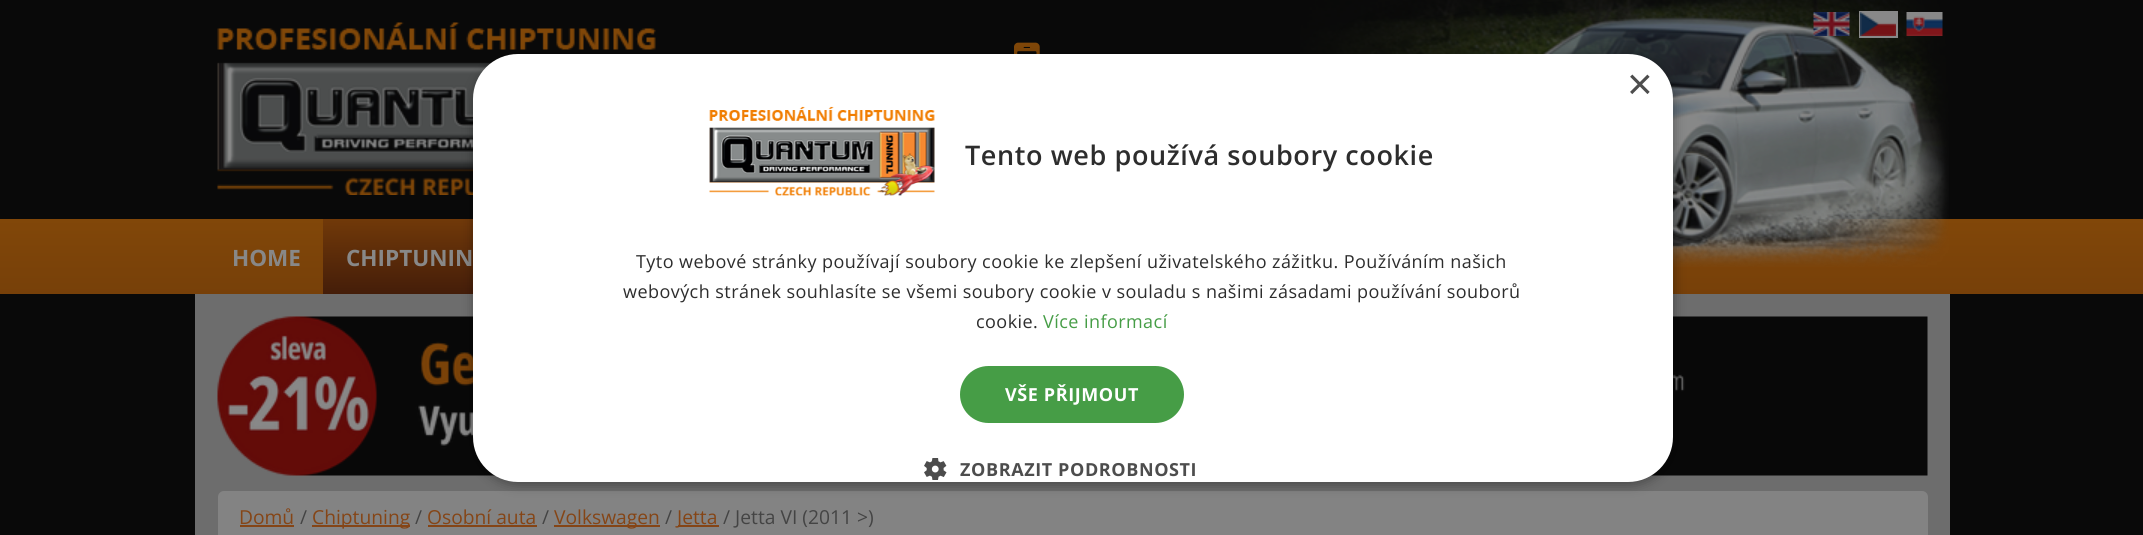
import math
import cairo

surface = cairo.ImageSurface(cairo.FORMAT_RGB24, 2143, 535)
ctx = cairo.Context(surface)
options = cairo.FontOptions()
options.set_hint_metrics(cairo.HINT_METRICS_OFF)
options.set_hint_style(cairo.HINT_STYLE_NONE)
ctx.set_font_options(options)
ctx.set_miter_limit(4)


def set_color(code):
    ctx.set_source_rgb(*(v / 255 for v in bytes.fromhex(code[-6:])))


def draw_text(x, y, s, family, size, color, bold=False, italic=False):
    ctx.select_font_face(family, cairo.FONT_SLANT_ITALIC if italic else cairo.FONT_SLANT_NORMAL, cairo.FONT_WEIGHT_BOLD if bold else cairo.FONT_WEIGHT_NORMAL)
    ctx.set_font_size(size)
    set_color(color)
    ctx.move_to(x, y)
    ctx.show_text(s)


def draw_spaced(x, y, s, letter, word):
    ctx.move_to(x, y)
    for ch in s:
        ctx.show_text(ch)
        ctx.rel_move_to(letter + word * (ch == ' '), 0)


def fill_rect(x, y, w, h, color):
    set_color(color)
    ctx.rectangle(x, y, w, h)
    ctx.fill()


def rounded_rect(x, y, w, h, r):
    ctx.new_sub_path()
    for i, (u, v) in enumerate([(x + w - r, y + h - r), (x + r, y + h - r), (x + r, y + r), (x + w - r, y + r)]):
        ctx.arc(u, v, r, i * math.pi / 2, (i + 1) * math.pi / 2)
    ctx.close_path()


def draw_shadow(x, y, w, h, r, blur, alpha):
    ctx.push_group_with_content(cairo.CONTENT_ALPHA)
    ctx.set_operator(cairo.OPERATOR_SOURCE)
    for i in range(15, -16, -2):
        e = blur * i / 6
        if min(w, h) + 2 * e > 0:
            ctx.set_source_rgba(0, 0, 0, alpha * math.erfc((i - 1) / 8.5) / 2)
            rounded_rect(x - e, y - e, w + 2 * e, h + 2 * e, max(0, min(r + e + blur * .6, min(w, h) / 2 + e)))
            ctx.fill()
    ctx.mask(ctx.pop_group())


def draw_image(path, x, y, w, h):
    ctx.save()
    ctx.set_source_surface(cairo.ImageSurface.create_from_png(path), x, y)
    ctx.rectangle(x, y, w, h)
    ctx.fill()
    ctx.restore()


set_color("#090909")
ctx.paint()
gradient = cairo.LinearGradient(1072, 219, 1072, 294)
gradient.add_color_stop_rgba(0, 0.506, 0.278, 0.035, 1)
gradient.add_color_stop_rgba(1, 0.467, 0.251, 0.035, 1)
ctx.set_source(gradient)
ctx.rectangle(0, 219, 2143, 75)
ctx.fill()
draw_image("assets/img1.png", 1300, 0, 649, 267)
draw_image("assets/img2.png", 217, 22, 439, 173)
draw_image("assets/img3.png", 1813, 12, 37, 24)
ctx.rectangle(1860, 12, 37, 25)
set_color("#888888")
ctx.stroke()
draw_image("assets/img4.png", 1860, 12, 36, 24)
draw_image("assets/img5.png", 1906, 12, 37, 24)
draw_image("assets/img6.png", 1014, 42, 26, 12)
draw_text(232, 266, "HOME", "Open Sans", 22.5, "#888888", bold=True)
gradient = cairo.LinearGradient(417, 219, 417, 294)
gradient.add_color_stop_rgba(0, 0.443, 0.224, 0.035, 1)
gradient.add_color_stop_rgba(1, 0.267, 0.114, 0.035, 1)
ctx.set_source(gradient)
ctx.rectangle(323, 219, 150, 75)
ctx.fill()
draw_text(346, 266, "CHIPTUNIN", "Open Sans", 22.5, "#888888", bold=True)
fill_rect(195, 294, 1755, 241, "#6d6d6d")
draw_image("assets/img7.png", 217, 316, 1711, 160)
set_color("#838383")
rounded_rect(218, 491, 1710, 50, 6)
ctx.fill()
draw_text(239, 524, "Domů", "Open Sans", 19.25, "#854516")
fill_rect(240, 525, 54, 2, "#854516")
draw_text(300, 524, "/", "Open Sans", 19.25, "#444444")
fill_rect(312, 525, 98, 2, "#854516")
draw_text(312, 524, "Chiptuning", "Open Sans", 19.25, "#854516")
draw_text(415, 524, "/", "Open Sans", 19.25, "#444444")
draw_text(427, 524, "Osobní auta", "Open Sans", 19.25, "#854516")
fill_rect(428, 525, 109, 2, "#854516")
draw_text(542, 524, "/", "Open Sans", 19.25, "#444444")
fill_rect(554, 525, 106, 2, "#854516")
draw_text(554, 524, "Volkswagen", "Open Sans", 19.25, "#854516")
draw_text(665, 524, "/", "Open Sans", 19.25, "#444444")
fill_rect(678, 525, 41, 2, "#854516")
draw_text(677, 524, "Jetta", "Open Sans", 19.25, "#854516")
draw_text(723, 524, "/ Jetta VI (2011 >)", "Open Sans", 19.25, "#444444")
set_color("#000000")
draw_shadow(474, 57, 1200, 428, 45, 6, 0.35)
set_color("#ffffff")
rounded_rect(473, 54, 1200, 428, 45)
ctx.fill()
draw_text(1627, 99, "×", "Liberation Sans", 44, "#4d4d4d")
draw_image("assets/img8.png", 709, 106, 226, 90)
ctx.select_font_face("Open Sans SemiBold")
ctx.set_font_size(27)
set_color("#2d2d2d")
draw_spaced(965, 165, "Tento web používá soubory cookie", 0.6, 0)
ctx.select_font_face("Open Sans")
ctx.set_font_size(18)
draw_spaced(636, 268, "Tyto webové stránky používají soubory cookie ke zlepšení uživatelského zážitku. Používáním našich", 0.45, 0)
draw_spaced(623, 298, "webových stránek souhlasíte se všemi soubory cookie v souladu s našimi zásadami používání souborů", 0.45, 0)
draw_spaced(976, 328, "cookie.", 0.45, 0)
set_color("#469d46")
draw_spaced(1043, 328, "Více informací", 0.45, 0)
rounded_rect(960, 366, 224, 57, 28.5)
ctx.fill()
ctx.select_font_face("Open Sans", cairo.FONT_SLANT_NORMAL, cairo.FONT_WEIGHT_BOLD)
set_color("#ffffff")
draw_spaced(1005, 401, "VŠE PŘIJMOUT", 0.6, 0)
draw_image("assets/img9.png", 924, 458, 23, 22)
set_color("#4d4d4d")
draw_spaced(960, 476, "ZOBRAZIT PODROBNOSTI", 0.6, 0)
surface.write_to_png("output.png")
